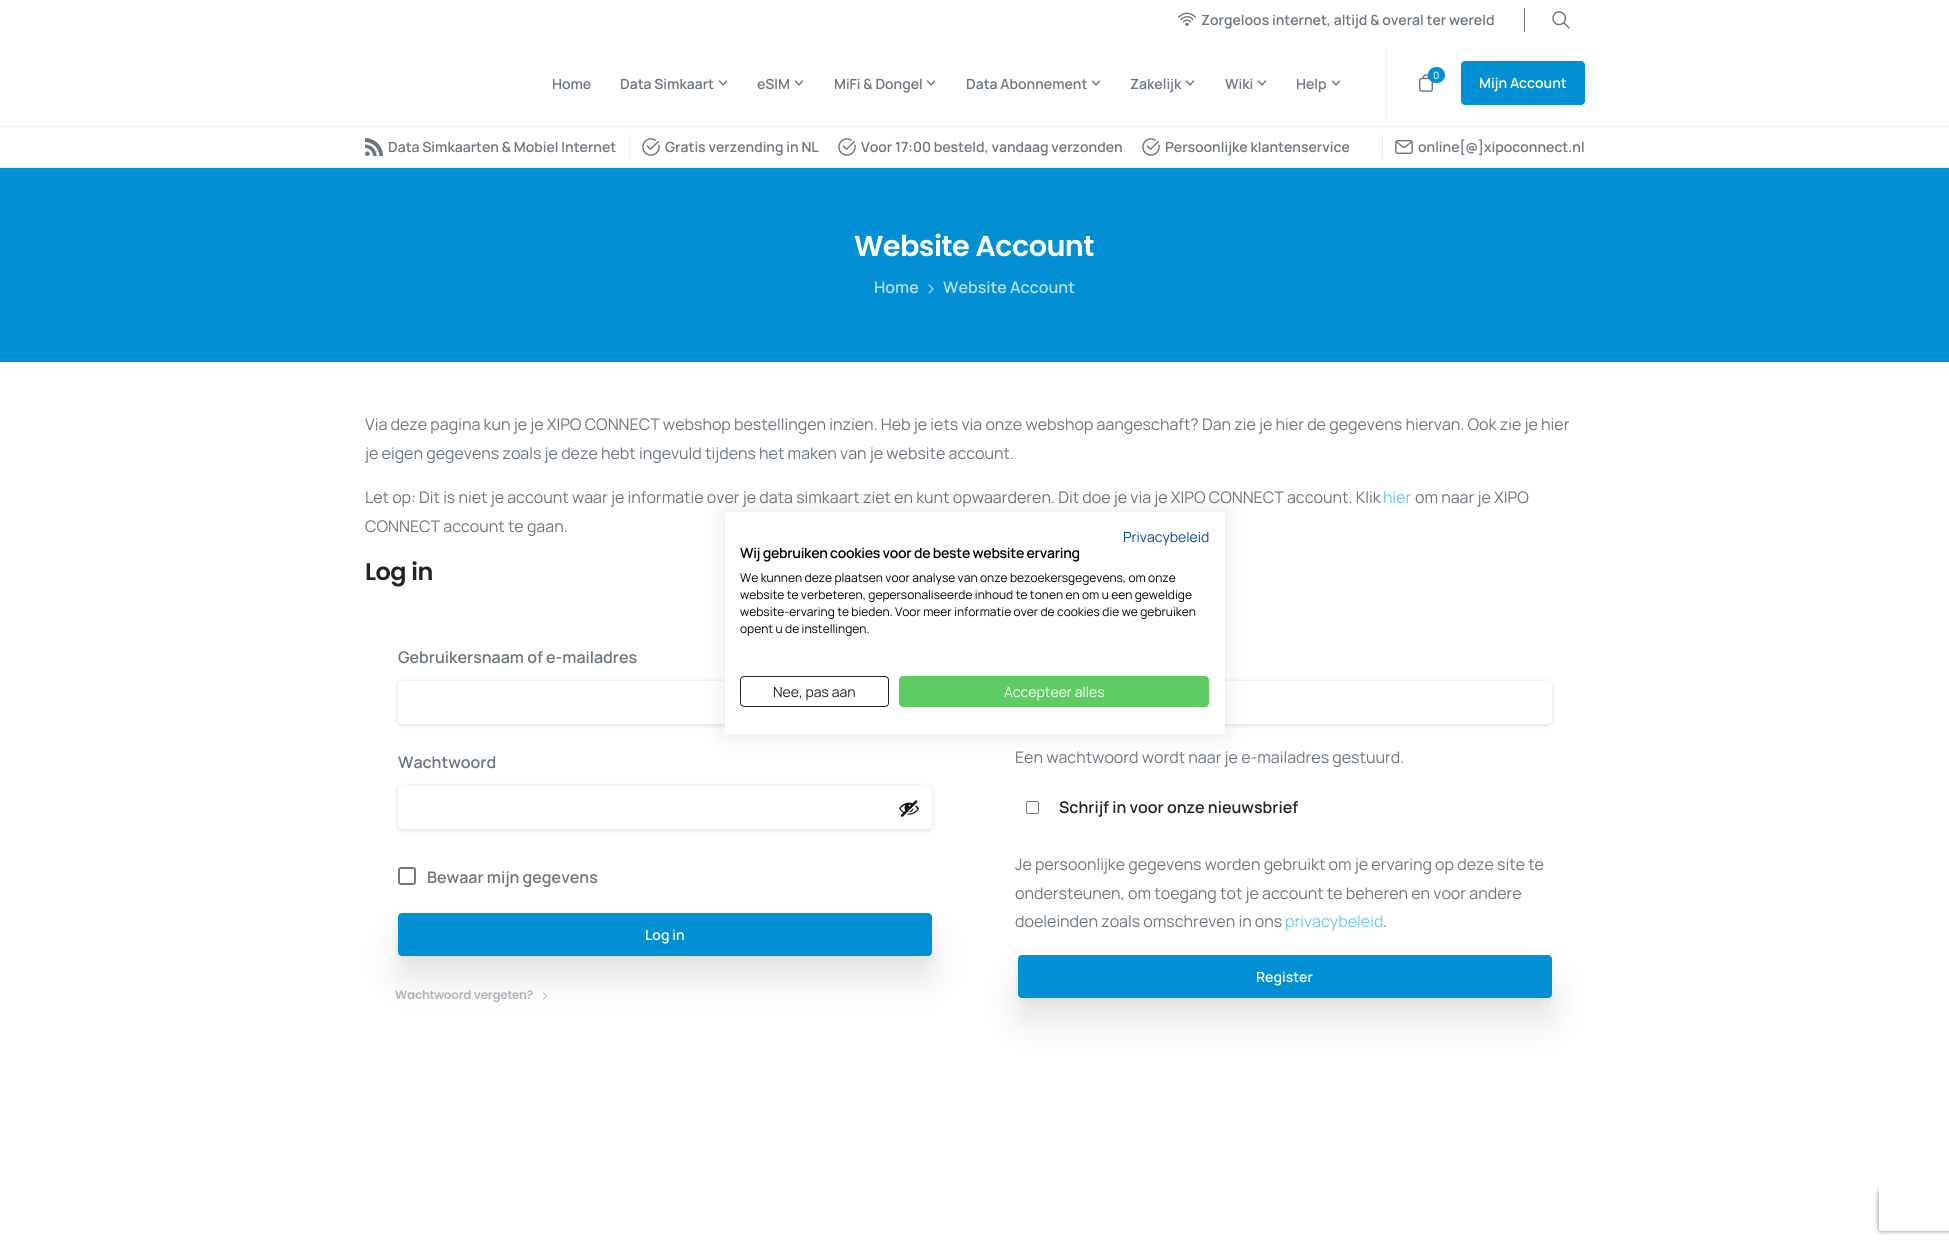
import math
import cairo

surface = cairo.ImageSurface(cairo.FORMAT_RGB24, 1949, 1245)
ctx = cairo.Context(surface)
options = cairo.FontOptions()
options.set_hint_metrics(cairo.HINT_METRICS_OFF)
options.set_hint_style(cairo.HINT_STYLE_NONE)
ctx.set_font_options(options)
ctx.set_miter_limit(4)


def set_color(code):
    ctx.set_source_rgb(*(v / 255 for v in bytes.fromhex(code[-6:])))


def draw_text(x, y, s, family, size, color, bold=False, italic=False):
    ctx.select_font_face(family, cairo.FONT_SLANT_ITALIC if italic else cairo.FONT_SLANT_NORMAL, cairo.FONT_WEIGHT_BOLD if bold else cairo.FONT_WEIGHT_NORMAL)
    ctx.set_font_size(size)
    set_color(color)
    ctx.move_to(x, y)
    ctx.show_text(s)


def draw_spaced(x, y, s, letter, word):
    ctx.move_to(x, y)
    for ch in s:
        ctx.show_text(ch)
        ctx.rel_move_to(letter + word * (ch == ' '), 0)


def fill_rect(x, y, w, h, color):
    set_color(color)
    ctx.rectangle(x, y, w, h)
    ctx.fill()


def rounded_rect(x, y, w, h, r):
    ctx.new_sub_path()
    for i, (u, v) in enumerate([(x + w - r, y + h - r), (x + r, y + h - r), (x + r, y + r), (x + w - r, y + r)]):
        ctx.arc(u, v, r, i * math.pi / 2, (i + 1) * math.pi / 2)
    ctx.close_path()


def draw_shadow(x, y, w, h, r, blur, alpha):
    ctx.push_group_with_content(cairo.CONTENT_ALPHA)
    ctx.set_operator(cairo.OPERATOR_SOURCE)
    for i in range(15, -16, -2):
        e = blur * i / 6
        if min(w, h) + 2 * e > 0:
            ctx.set_source_rgba(0, 0, 0, alpha * math.erfc((i - 1) / 8.5) / 2)
            rounded_rect(x - e, y - e, w + 2 * e, h + 2 * e, max(0, min(r + e + blur * .6, min(w, h) / 2 + e)))
            ctx.fill()
    ctx.mask(ctx.pop_group())


def draw_image(path, x, y, w, h):
    ctx.save()
    ctx.set_source_surface(cairo.ImageSurface.create_from_png(path), x, y)
    ctx.rectangle(x, y, w, h)
    ctx.fill()
    ctx.restore()


set_color("#ffffff")
ctx.paint()
draw_image("assets/img1.png", 1178, 12, 18, 14)
draw_text(1201, 25, "Zorgeloos internet, altijd & overal ter wereld", "Manrope SemiBold", 14, "#6c757d")
fill_rect(1524, 8, 1, 24, "#6c757d")
ctx.new_path()
ctx.move_to(1559, 24.5)
ctx.curve_to(1567.5, 24.5, 1567.5, 12, 1559, 12)
ctx.curve_to(1551, 12, 1551, 24.5, 1559, 24.5)
ctx.close_path()
ctx.move_to(1563.5, 22.5)
ctx.line_to(1569, 28)
ctx.set_line_width(1.4)
ctx.set_line_cap(cairo.LINE_CAP_ROUND)
ctx.set_line_join(cairo.LINE_JOIN_ROUND)
ctx.stroke()
fill_rect(1386, 48, 1, 70, "#e9ecef")
draw_image("assets/img2.png", 1419, 74, 14, 18)
set_color("#000000")
draw_shadow(1428, 68, 17, 16, 8, 1, 0.05)
set_color("#0090d3")
rounded_rect(1428, 67, 17, 16, 8)
ctx.fill()
draw_text(1433, 79, "0", "Manrope SemiBold", 10, "#cce9f6")
draw_text(552, 89, "Home", "Manrope SemiBold", 14, "#6c757d")
draw_text(620, 89, "Data Simkaart", "Manrope SemiBold", 14, "#6c757d")
ctx.new_path()
ctx.move_to(719.5, 81)
ctx.line_to(723, 85)
ctx.line_to(726.5, 81)
ctx.stroke()
draw_text(757, 89, "eSIM", "Manrope SemiBold", 14, "#6c757d")
ctx.new_path()
ctx.move_to(795.5, 81)
ctx.line_to(799, 85)
ctx.line_to(802.5, 81)
ctx.stroke()
draw_text(834, 89, "MiFi & Dongel", "Manrope SemiBold", 14, "#6c757d")
ctx.new_path()
ctx.move_to(927.5, 81)
ctx.line_to(931, 85)
ctx.line_to(934.5, 81)
ctx.stroke()
draw_text(966, 89, "Data Abonnement", "Manrope SemiBold", 14, "#6c757d")
ctx.new_path()
ctx.move_to(1092.5, 81)
ctx.line_to(1096, 85)
ctx.line_to(1099.5, 81)
ctx.stroke()
draw_text(1130, 89, "Zakelijk", "Manrope SemiBold", 14, "#6c757d")
ctx.new_path()
ctx.move_to(1186.5, 81)
ctx.line_to(1190, 85)
ctx.line_to(1193.5, 81)
ctx.stroke()
draw_text(1225, 89, "Wiki", "Manrope SemiBold", 14, "#6c757d")
ctx.new_path()
ctx.move_to(1258.5, 81)
ctx.line_to(1262, 85)
ctx.line_to(1265.5, 81)
ctx.stroke()
draw_text(1296, 89, "Help", "Manrope SemiBold", 14, "#6c757d")
ctx.new_path()
ctx.move_to(1332.5, 81)
ctx.line_to(1336, 85)
ctx.line_to(1339.5, 81)
ctx.stroke()
set_color("#0090d3")
rounded_rect(1461, 61, 124, 44, 4)
ctx.fill()
draw_text(1479, 88, "Mijn Account", "Manrope SemiBold", 14, "#ffffff")
fill_rect(0, 126, 1949, 1, "#e9ecef")
draw_image("assets/img3.png", 365, 138, 18, 18)
draw_text(388, 152, "Data Simkaarten & Mobiel Internet", "Manrope SemiBold", 14, "#6c757d")
fill_rect(629, 135, 1, 24, "#e9ecef")
draw_image("assets/img4.png", 642, 138, 18, 18)
draw_text(665, 152, "Gratis verzending in NL", "Manrope SemiBold", 14, "#6c757d")
draw_image("assets/img4.png", 838, 138, 18, 18)
draw_text(861, 152, "Voor 17:00 besteld, vandaag verzonden", "Manrope SemiBold", 14, "#6c757d")
draw_image("assets/img4.png", 1142, 138, 18, 18)
draw_text(1165, 152, "Persoonlijke klantenservice", "Manrope SemiBold", 14, "#6c757d")
fill_rect(1382, 135, 1, 24, "#e9ecef")
draw_image("assets/img5.png", 1395, 140, 18, 14)
draw_text(1418, 152, "online[@]xipoconnect.nl", "Manrope SemiBold", 14, "#6c757d")
fill_rect(0, 167, 1949, 1, "#e9ecef")
fill_rect(0, 168, 1949, 194, "#0090d3")
ctx.select_font_face("Poppins SemiBold")
ctx.set_font_size(28.75)
set_color("#ffffff")
draw_spaced(854, 256, "Website Account", -0.6, 0)
draw_text(874, 293, "Home", "Manrope SemiBold", 16, "#b3def2")
ctx.new_path()
ctx.move_to(929, 293)
ctx.line_to(933, 289)
ctx.line_to(929, 285)
ctx.set_line_width(1.2)
ctx.stroke()
draw_text(943, 293, "Website Account", "Manrope SemiBold", 16, "#b3def2")
ctx.save()
ctx.set_fill_rule(cairo.FILL_RULE_EVEN_ODD)
ctx.new_path()
ctx.move_to(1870, 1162)
ctx.line_to(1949, 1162)
ctx.line_to(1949, 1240)
ctx.line_to(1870, 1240)
ctx.close_path()
ctx.move_to(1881, 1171)
ctx.line_to(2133, 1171)
ctx.curve_to(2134, 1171, 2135, 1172, 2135, 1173)
ctx.line_to(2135, 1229)
ctx.curve_to(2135, 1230, 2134, 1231, 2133, 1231)
ctx.line_to(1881, 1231)
ctx.curve_to(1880, 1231, 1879, 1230, 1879, 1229)
ctx.line_to(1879, 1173)
ctx.curve_to(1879, 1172, 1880, 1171, 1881, 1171)
ctx.close_path()
ctx.clip()
set_color("#808080")
draw_shadow(1879, 1171, 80, 60, 2, 2.5, 1)
ctx.restore()
fill_rect(1874, 1166, 75, 21, "#ffffff")
draw_text(365, 430, "Via deze pagina kun je je XIPO CONNECT webshop bestellingen inzien. Heb je iets via onze webshop aangeschaft? Dan zie je hier de gegevens hiervan. Ook zie je hier", "Manrope", 16, "#6c757d")
draw_text(365, 459, "je eigen gegevens zoals je deze hebt ingevuld tijdens het maken van je website account.", "Manrope", 16, "#6c757d")
draw_text(365, 503, "Let op: Dit is niet je account waar je informatie over je data simkaart ziet en kunt opwaarderen. Dit doe je via je XIPO CONNECT account. Klik", "Manrope", 16, "#6c757d")
draw_text(1383, 503, "hier", "Manrope", 16, "#6ec5f0")
draw_text(1415, 503, "om naar je XIPO", "Manrope", 16, "#6c757d")
draw_text(365, 532, "CONNECT account te gaan.", "Manrope", 16, "#6c757d")
ctx.select_font_face("Poppins SemiBold")
ctx.set_font_size(24)
set_color("#212529")
draw_spaced(365, 580, "Log in", -0.5, 0)
draw_text(398, 663, "Gebruikersnaam of e-mailadres", "Manrope SemiBold", 16, "#6c757d")
set_color("#000000")
draw_shadow(398, 682, 534, 43, 4, 2.5, 0.15)
set_color("#ffffff")
rounded_rect(398, 681, 534, 43, 4)
ctx.fill()
draw_text(398, 768, "Wachtwoord", "Manrope SemiBold", 16, "#6c757d")
set_color("#000000")
draw_shadow(398, 787, 534, 43, 4, 2.5, 0.15)
set_color("#ffffff")
rounded_rect(398, 786, 534, 43, 4)
ctx.fill()
draw_image("assets/img6.png", 899, 800, 20, 17)
set_color("#000000")
draw_shadow(398, 937, 534, 43, 4, 17.5, 0.1)
rounded_rect(399, 868, 16, 16, 2)
set_color("#787878")
ctx.set_line_width(2)
ctx.set_line_cap(cairo.LINE_CAP_BUTT)
ctx.set_line_join(cairo.LINE_JOIN_MITER)
ctx.stroke()
draw_text(427, 883, "Bewaar mijn gegevens", "Manrope SemiBold", 16, "#6c757d")
set_color("#000000")
draw_shadow(398, 917, 534, 43, 4, 4, 0.05)
set_color("#0090d3")
rounded_rect(398, 913, 534, 43, 4)
ctx.fill()
draw_text(645, 940, "Log in", "Manrope SemiBold", 14, "#ffffff")
ctx.select_font_face("Poppins SemiBold")
ctx.set_font_size(12)
set_color("#adb5bd")
draw_spaced(395, 999, "Wachtwoord vergeten?", -0.25, 0)
ctx.new_path()
ctx.move_to(543.5, 999)
ctx.line_to(546.5, 996)
ctx.line_to(543.5, 993)
ctx.set_line_width(0.9)
ctx.set_line_cap(cairo.LINE_CAP_ROUND)
ctx.set_line_join(cairo.LINE_JOIN_ROUND)
ctx.stroke()
set_color("#000000")
draw_shadow(1018, 682, 534, 43, 4, 2.5, 0.15)
set_color("#ffffff")
rounded_rect(1018, 681, 534, 43, 4)
ctx.fill()
draw_text(1015, 763, "Een wachtwoord wordt naar je e-mailadres gestuurd.", "Manrope", 16, "#6c757d")
rounded_rect(1026.5, 801.5, 12, 12, 1.5)
set_color("#767676")
ctx.set_line_width(1)
ctx.set_line_cap(cairo.LINE_CAP_BUTT)
ctx.set_line_join(cairo.LINE_JOIN_MITER)
ctx.stroke()
draw_text(1059, 813, "Schrijf in voor onze nieuwsbrief", "Manrope SemiBold", 16, "#212529")
draw_text(1015, 870, "Je persoonlijke gegevens worden gebruikt om je ervaring op deze site te", "Manrope", 16, "#6c757d")
draw_text(1015, 899, "ondersteunen, om toegang tot je account te beheren en voor andere", "Manrope", 16, "#6c757d")
draw_text(1015, 927, "doeleinden zoals omschreven in ons", "Manrope", 16, "#6c757d")
draw_text(1285, 927, "privacybeleid", "Manrope", 16, "#6ec5f0")
draw_text(1383, 927, ".", "Manrope", 16, "#6c757d")
set_color("#000000")
draw_shadow(1018, 979, 534, 43, 4, 17.5, 0.1)
draw_shadow(1018, 959, 534, 43, 4, 4, 0.05)
set_color("#0090d3")
rounded_rect(1018, 955, 534, 43, 4)
ctx.fill()
draw_text(1256, 982, "Register", "Manrope SemiBold", 14, "#ffffff")
ctx.set_source_rgba(1, 1, 1, 0.3)
ctx.new_path()
ctx.move_to(1949, 1187)
ctx.curve_to(974, 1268, 325, 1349, 0, 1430)
ctx.line_to(0, 1187)
ctx.close_path()
ctx.fill()
ctx.set_source_rgba(1, 1, 1, 0.6)
ctx.new_path()
ctx.move_to(1949, 1187)
ctx.curve_to(974, 1235, 325, 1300, 0, 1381)
ctx.line_to(0, 1187)
ctx.close_path()
ctx.fill()
set_color("#000000")
draw_shadow(725, 512, 500, 222, 0, 12, 0.1)
fill_rect(725, 512, 500, 222, "#ffffff")
draw_text(1123, 542, "Privacybeleid", "Manrope", 14, "#0047b2")
ctx.select_font_face("Manrope SemiBold")
set_color("#000000")
draw_spaced(740, 558, "Wij gebruiken cookies voor de beste website ervaring", -0.28, 0)
draw_text(740, 582, "We kunnen deze plaatsen voor analyse van onze bezoekersgegevens, om onze", "Manrope", 12, "#000000")
draw_text(740, 599, "website te verbeteren, gepersonaliseerde inhoud te tonen en om u een geweldige", "Manrope", 12, "#000000")
draw_text(740, 616, "website-ervaring te bieden. Voor meer informatie over de cookies die we gebruiken", "Manrope", 12, "#000000")
draw_text(740, 633, "opent u de instellingen.", "Manrope", 12, "#000000")
rounded_rect(740.5, 676.5, 148, 30, 3.5)
set_color("#212529")
ctx.stroke()
draw_text(773, 697, "Nee, pas aan", "Manrope", 14, "#212529")
set_color("#5ecc62")
rounded_rect(899.5, 676.5, 309, 30, 3.5)
ctx.fill_preserve()
ctx.stroke()
draw_text(1004, 697, "Accepteer alles", "Manrope", 14, "#ffffff")
surface.write_to_png("output.png")
